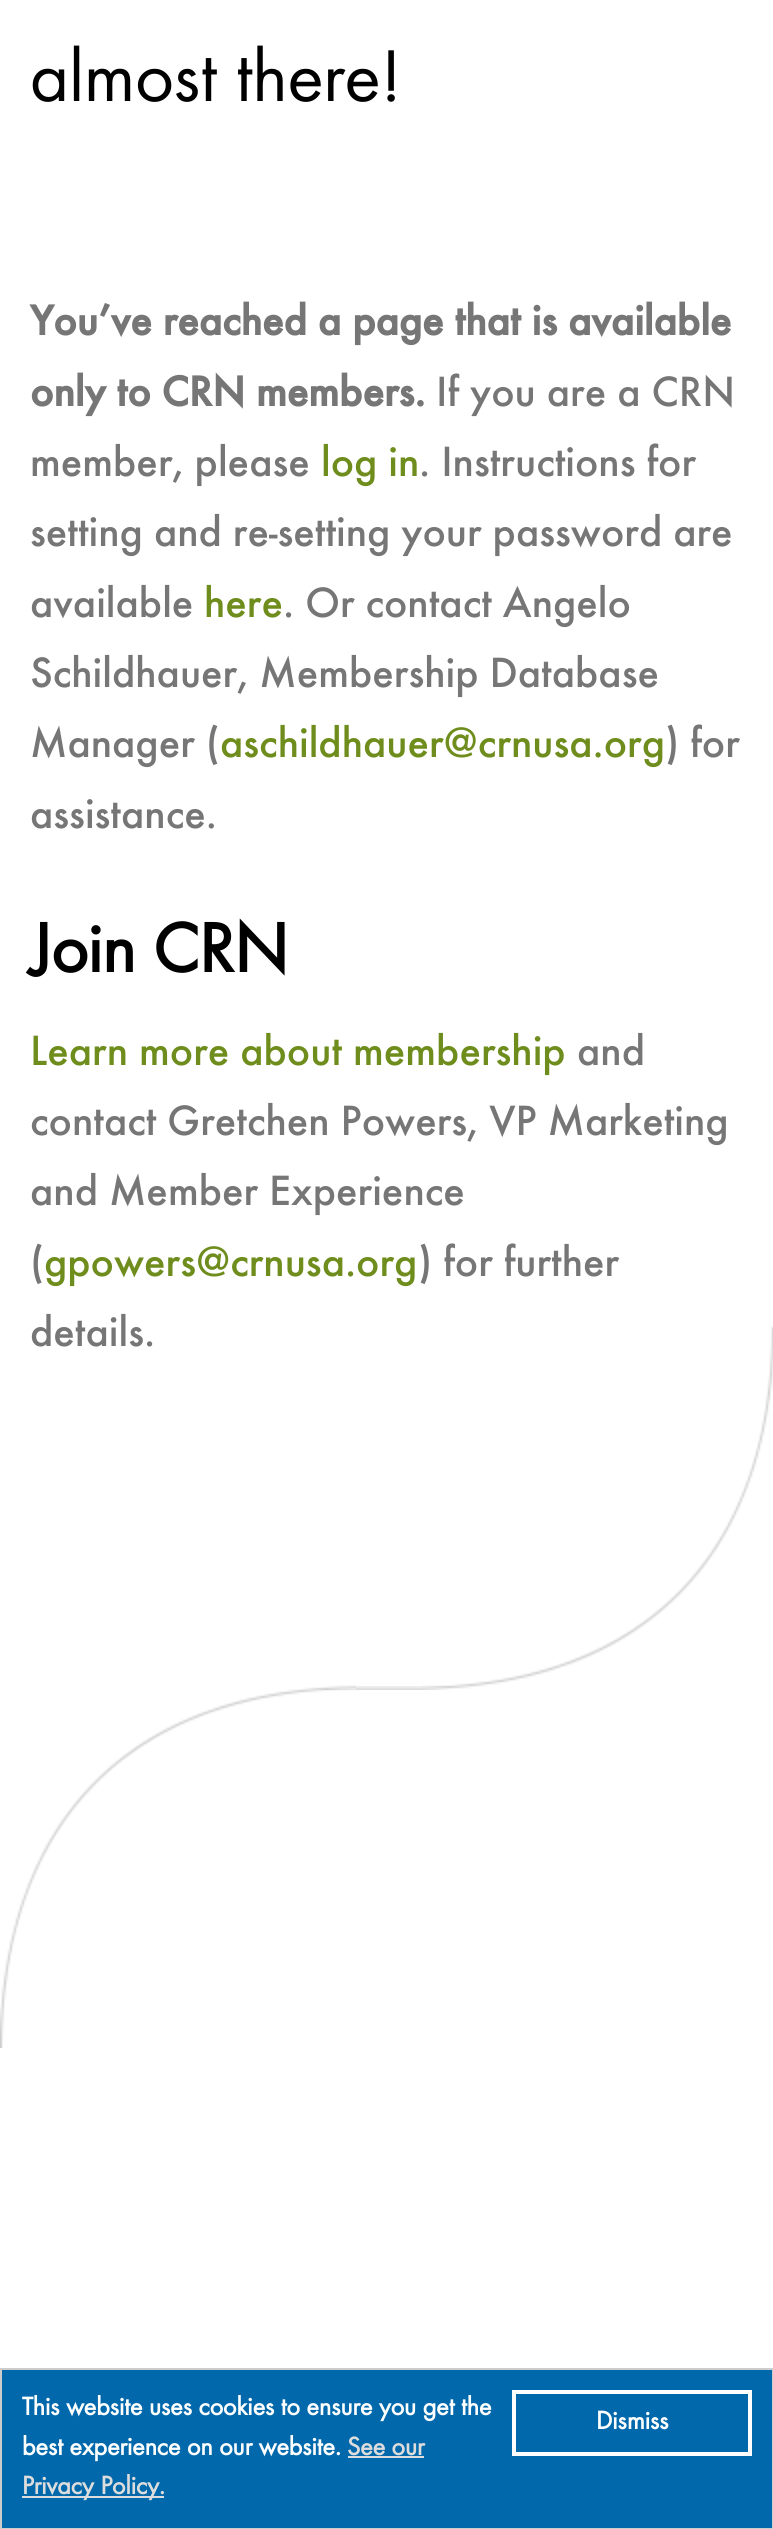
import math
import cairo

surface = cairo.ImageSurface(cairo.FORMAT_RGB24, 773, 2529)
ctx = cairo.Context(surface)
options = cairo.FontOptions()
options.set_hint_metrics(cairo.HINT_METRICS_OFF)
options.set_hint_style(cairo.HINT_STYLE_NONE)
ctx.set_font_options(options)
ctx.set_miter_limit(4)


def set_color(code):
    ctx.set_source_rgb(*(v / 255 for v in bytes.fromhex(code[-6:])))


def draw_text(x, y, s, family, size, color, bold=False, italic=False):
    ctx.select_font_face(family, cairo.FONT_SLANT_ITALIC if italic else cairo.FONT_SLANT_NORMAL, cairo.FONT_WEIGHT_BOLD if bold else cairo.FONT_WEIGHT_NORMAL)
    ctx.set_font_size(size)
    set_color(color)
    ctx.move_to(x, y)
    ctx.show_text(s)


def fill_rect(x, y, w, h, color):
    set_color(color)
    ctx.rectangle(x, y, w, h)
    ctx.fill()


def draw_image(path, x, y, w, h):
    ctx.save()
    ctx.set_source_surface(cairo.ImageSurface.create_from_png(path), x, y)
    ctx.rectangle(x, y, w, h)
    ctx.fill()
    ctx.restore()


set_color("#ffffff")
ctx.paint()
draw_image("assets/img1.png", 323, 1686, 128, 4)
draw_text(30, 101, "almost there!", "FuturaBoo", 76, "#000000")
draw_text(30, 335, "You’ve reached a page that is available", "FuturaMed", 44, "#767676", bold=True)
draw_text(30, 406, "only to CRN members.", "FuturaMed", 44, "#767676", bold=True)
draw_text(436, 406, "If you are a CRN", "FuturaMed", 44, "#767676")
draw_text(30, 476, "member, please", "FuturaMed", 44, "#767676")
draw_text(321, 476, "log in", "FuturaMed", 44, "#6f8d1d")
draw_text(419, 476, ". Instructions for", "FuturaMed", 44, "#767676")
draw_text(30, 546, "setting and re-setting your password are", "FuturaMed", 44, "#767676")
draw_text(30, 617, "available", "FuturaMed", 44, "#767676")
draw_text(204, 617, "here", "FuturaMed", 44, "#6f8d1d")
draw_text(283, 617, ". Or contact Angelo", "FuturaMed", 44, "#767676")
draw_text(30, 687, "Schildhauer, Membership Database", "FuturaMed", 44, "#767676")
draw_text(30, 757, "Manager (", "FuturaMed", 44, "#767676")
draw_text(220, 757, "aschildhauer@crnusa.org", "FuturaMed", 44, "#6f8d1d")
draw_text(665, 757, ") for", "FuturaMed", 44, "#767676")
draw_text(30, 828, "assistance.", "FuturaMed", 44, "#767676")
draw_text(30, 972, "Join CRN", "FuturaBoo", 72, "#000000", bold=True)
draw_text(30, 1065, "Learn more about membership", "FuturaMed", 44, "#6f8d1d")
draw_text(577, 1065, "and", "FuturaMed", 44, "#767676")
draw_text(30, 1135, "contact Gretchen Powers, VP Marketing", "FuturaMed", 44, "#767676")
draw_text(30, 1205, "and Member Experience", "FuturaMed", 44, "#767676")
draw_text(30, 1276, "(", "FuturaMed", 44, "#767676")
draw_text(44, 1276, "gpowers@crnusa.org", "FuturaMed", 44, "#6f8d1d")
draw_text(418, 1276, ") for further", "FuturaMed", 44, "#767676")
draw_text(30, 1346, "details.", "FuturaMed", 44, "#767676")
draw_image("assets/img2.png", 422, 1326, 351, 364)
draw_image("assets/img3.png", 0, 1685, 356, 363)
set_color("#0068ab")
ctx.rectangle(1, 2369, 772, 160)
ctx.fill_preserve()
set_color("#cccccc")
ctx.stroke()
draw_text(22, 2415, "This website uses cookies to ensure you get the", "FuturaBoo", 26.4, "#ffffff", bold=True)
draw_text(22, 2455, "best experience on our website.", "FuturaBoo", 26.4, "#ffffff", bold=True)
draw_text(347, 2455, "See our", "FuturaBoo", 26.4, "#dddddd", bold=True)
fill_rect(348, 2456, 76, 2, "#dddddd")
fill_rect(22, 2496, 142, 2, "#dddddd")
draw_text(22, 2494, "Privacy Policy.", "FuturaBoo", 26.4, "#dddddd", bold=True)
ctx.rectangle(514, 2392, 236, 62)
set_color("#ffffff")
ctx.set_line_width(4)
ctx.stroke()
draw_text(596, 2429, "Dismiss", "FuturaBoo", 26.4, "#ffffff", bold=True)
surface.write_to_png("output.png")
